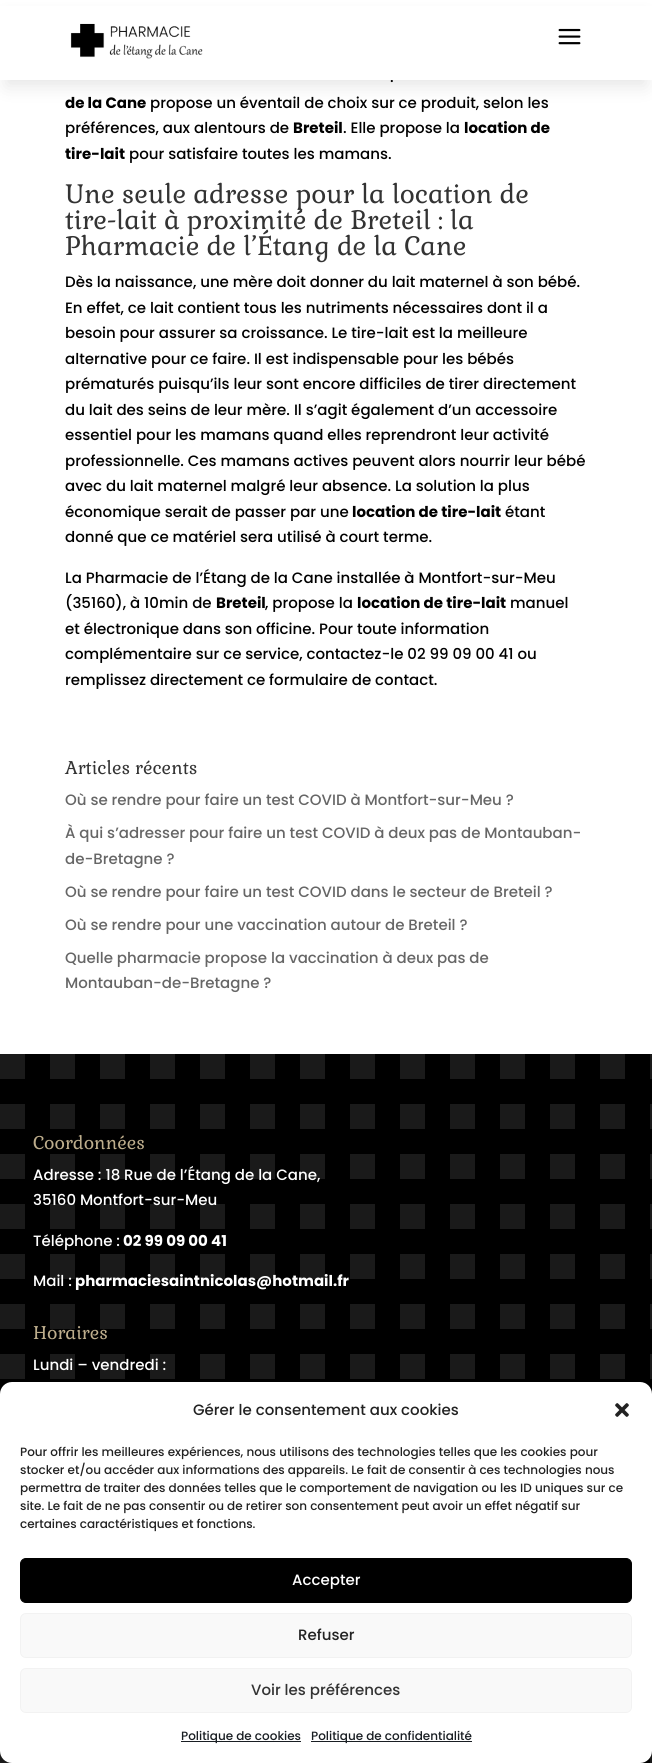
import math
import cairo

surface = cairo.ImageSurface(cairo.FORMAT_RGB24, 652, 1763)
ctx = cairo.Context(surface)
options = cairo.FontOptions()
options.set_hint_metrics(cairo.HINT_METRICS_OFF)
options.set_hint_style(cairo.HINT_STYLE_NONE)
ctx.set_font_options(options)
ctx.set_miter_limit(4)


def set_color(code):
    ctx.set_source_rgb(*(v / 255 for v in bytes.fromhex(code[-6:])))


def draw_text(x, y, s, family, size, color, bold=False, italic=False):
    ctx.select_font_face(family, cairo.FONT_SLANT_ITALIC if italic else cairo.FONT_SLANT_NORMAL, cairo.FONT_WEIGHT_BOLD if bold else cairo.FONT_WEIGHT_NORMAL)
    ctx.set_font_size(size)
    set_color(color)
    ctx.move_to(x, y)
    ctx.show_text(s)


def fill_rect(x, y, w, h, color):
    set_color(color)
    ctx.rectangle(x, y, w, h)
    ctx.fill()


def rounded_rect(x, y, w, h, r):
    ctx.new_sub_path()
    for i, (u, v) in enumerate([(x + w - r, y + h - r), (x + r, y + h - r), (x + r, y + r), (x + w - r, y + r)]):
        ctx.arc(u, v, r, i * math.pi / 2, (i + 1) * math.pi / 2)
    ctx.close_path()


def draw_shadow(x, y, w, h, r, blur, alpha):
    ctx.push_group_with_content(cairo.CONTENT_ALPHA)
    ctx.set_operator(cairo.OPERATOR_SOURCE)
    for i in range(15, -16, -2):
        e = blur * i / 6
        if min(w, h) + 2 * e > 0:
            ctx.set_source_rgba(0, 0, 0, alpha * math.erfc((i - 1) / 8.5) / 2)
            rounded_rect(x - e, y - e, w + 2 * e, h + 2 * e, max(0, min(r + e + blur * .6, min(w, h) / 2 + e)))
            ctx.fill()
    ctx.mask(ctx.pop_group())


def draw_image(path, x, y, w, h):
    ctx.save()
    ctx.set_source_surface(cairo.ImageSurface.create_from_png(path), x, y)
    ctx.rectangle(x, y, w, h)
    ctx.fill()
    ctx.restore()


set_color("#ffffff")
ctx.paint()
set_color("#000000")
draw_shadow(6, 18, 640, 68, 0, 9, 0.1)
draw_text(390, 82, ".", "Poppins Medium", 15, "#000000")
fill_rect(0, 6, 652, 74, "#ffffff")
draw_image("assets/img1.png", 70, 23, 133, 36)
draw_image("assets/img2.png", 558, 28, 23, 17)
draw_text(65, 108, "de la Cane", "Poppins", 15, "#000000", bold=True)
draw_text(150, 108, "propose un éventail de choix sur ce produit, selon les", "Poppins Medium", 15, "#000000")
draw_text(65, 133, "préférences, aux alentours de", "Poppins Medium", 15, "#000000")
draw_text(293, 133, "Breteil", "Poppins", 15, "#000000", bold=True)
draw_text(343, 133, ". Elle propose la", "Poppins Medium", 15, "#000000")
draw_text(464, 133, "location de", "Poppins", 15, "#000000", bold=True)
draw_text(65, 159, "tire-lait", "Poppins", 15, "#000000", bold=True)
draw_text(129, 159, "pour satisfaire toutes les mamans.", "Poppins Medium", 15, "#000000")
draw_text(65, 203, "Une seule adresse pour la location de", "Gabriela", 26, "#333333")
draw_text(65, 229, "tire-lait à proximité de Breteil : la", "Gabriela", 26, "#333333")
draw_text(65, 255, "Pharmacie de l’Étang de la Cane", "Gabriela", 26, "#333333")
draw_text(65, 287, "Dès la naissance, une mère doit donner du lait maternel à son bébé.", "Poppins Medium", 15, "#000000")
draw_text(65, 313, "En effet, ce lait contient tous les nutriments nécessaires dont il a", "Poppins Medium", 15, "#000000")
draw_text(65, 338, "besoin pour assurer sa croissance. Le tire-lait est la meilleure", "Poppins Medium", 15, "#000000")
draw_text(65, 364, "alternative pour ce faire. Il est indispensable pour les bébés", "Poppins Medium", 15, "#000000")
draw_text(65, 389, "prématurés puisqu’ils leur sont encore difficiles de tirer directement", "Poppins Medium", 15, "#000000")
draw_text(65, 415, "du lait des seins de leur mère. Il s’agit également d’un accessoire", "Poppins Medium", 15, "#000000")
draw_text(65, 440, "essentiel pour les mamans quand elles reprendront leur activité", "Poppins Medium", 15, "#000000")
draw_text(65, 466, "professionnelle. Ces mamans actives peuvent alors nourrir leur bébé", "Poppins Medium", 15, "#000000")
draw_text(65, 491, "avec du lait maternel malgré leur absence. La solution la plus", "Poppins Medium", 15, "#000000")
draw_text(65, 517, "économique serait de passer par une", "Poppins Medium", 15, "#000000")
draw_text(352, 517, "location de tire-lait", "Poppins", 15, "#000000", bold=True)
draw_text(505, 517, "étant", "Poppins Medium", 15, "#000000")
draw_text(65, 542, "donné que ce matériel sera utilisé à court terme.", "Poppins Medium", 15, "#000000")
draw_text(65, 583, "La Pharmacie de l’Étang de la Cane installée à Montfort-sur-Meu", "Poppins Medium", 15, "#000000")
draw_text(65, 608, "(35160), à 10min de", "Poppins Medium", 15, "#000000")
draw_text(216, 608, "Breteil", "Poppins", 15, "#000000", bold=True)
draw_text(265, 608, ", propose la", "Poppins Medium", 15, "#000000")
draw_text(357, 608, "location de tire-lait", "Poppins", 15, "#000000", bold=True)
draw_text(510, 608, "manuel", "Poppins Medium", 15, "#000000")
draw_text(65, 634, "et électronique dans son officine. Pour toute information", "Poppins Medium", 15, "#000000")
draw_text(65, 659, "complémentaire sur ce service, contactez-le 02 99 09 00 41 ou", "Poppins Medium", 15, "#000000")
draw_text(65, 685, "remplissez directement ce formulaire de contact.", "Poppins Medium", 15, "#000000")
draw_text(65, 774, "Articles récents", "Gabriela", 18, "#333333")
draw_text(65, 805, "Où se rendre pour faire un test COVID à Montfort-sur-Meu ?", "Poppins Medium", 15, "#666666")
draw_text(65, 838, "À qui s’adresser pour faire un test COVID à deux pas de Montauban-", "Poppins Medium", 15, "#666666")
draw_text(65, 864, "de-Bretagne ?", "Poppins Medium", 15, "#666666")
draw_text(65, 897, "Où se rendre pour faire un test COVID dans le secteur de Breteil ?", "Poppins Medium", 15, "#666666")
draw_text(65, 930, "Où se rendre pour une vaccination autour de Breteil ?", "Poppins Medium", 15, "#666666")
draw_text(65, 963, "Quelle pharmacie propose la vaccination à deux pas de", "Poppins Medium", 15, "#666666")
draw_text(65, 988, "Montauban-de-Bretagne ?", "Poppins Medium", 15, "#666666")
fill_rect(0, 1054, 652, 709, "#000000")
draw_image("assets/img3.png", 0, 1054, 652, 709)
draw_text(33, 1149, "Coordonnées", "Gabriela", 18, "#bdad8c")
draw_text(33, 1180, "Adresse : 18 Rue de l’Étang de la Cane,", "Poppins Medium", 15, "#ffffff")
draw_text(33, 1205, "35160 Montfort-sur-Meu", "Poppins Medium", 15, "#ffffff")
draw_text(33, 1246, "Téléphone :", "Poppins Medium", 15, "#ffffff")
draw_text(123, 1246, "02 99 09 00 41", "Poppins", 15, "#ffffff", bold=True)
draw_text(33, 1286, "Mail :", "Poppins Medium", 15, "#ffffff")
draw_text(75, 1286, "pharmaciesaintnicolas@hotmail.fr", "Poppins", 15, "#ffffff", bold=True)
draw_text(33, 1339, "Horaires", "Gabriela", 18, "#bdad8c")
draw_text(33, 1370, "Lundi – vendredi :", "Poppins Medium", 15, "#ffffff")
rounded_rect(0, 1382, 652, 381, 12)
ctx.fill()
draw_text(193, 1415, "Gérer le consentement aux cookies", "Poppins Medium", 15, "#222222")
draw_image("assets/img4.png", 615, 1403, 14, 14)
draw_text(20, 1456, "Pour offrir les meilleures expériences, nous utilisons des technologies telles que les cookies pour", "Poppins Medium", 12, "#222222")
draw_text(20, 1474, "stocker et/ou accéder aux informations des appareils. Le fait de consentir à ces technologies nous", "Poppins Medium", 12, "#222222")
draw_text(20, 1492, "permettra de traiter des données telles que le comportement de navigation ou les ID uniques sur ce", "Poppins Medium", 12, "#222222")
draw_text(20, 1510, "site. Le fait de ne pas consentir ou de retirer son consentement peut avoir un effet négatif sur", "Poppins Medium", 12, "#222222")
draw_text(20, 1528, "certaines caractéristiques et fonctions.", "Poppins Medium", 12, "#222222")
set_color("#000000")
rounded_rect(20.5, 1558.5, 611, 44, 5.5)
ctx.fill_preserve()
ctx.set_line_width(1)
ctx.stroke()
draw_text(292, 1585, "Accepter", "Poppins Medium", 15, "#ffffff")
set_color("#f9f9f9")
rounded_rect(20.5, 1613.5, 611, 44, 5.5)
ctx.fill_preserve()
set_color("#f2f2f2")
ctx.stroke()
draw_text(298, 1640, "Refuser", "Poppins Medium", 15, "#222222")
set_color("#f9f9f9")
rounded_rect(20.5, 1668.5, 611, 44, 5.5)
ctx.fill_preserve()
set_color("#f2f2f2")
ctx.stroke()
draw_text(251, 1695, "Voir les préférences", "Poppins Medium", 15, "#333333")
fill_rect(181, 1741, 120, 1, "#191e23")
draw_text(181, 1740, "Politique de cookies", "Poppins Medium", 12, "#191e23")
fill_rect(311, 1741, 161, 1, "#191e23")
draw_text(311, 1740, "Politique de confidentialité", "Poppins Medium", 12, "#191e23")
surface.write_to_png("output.png")
